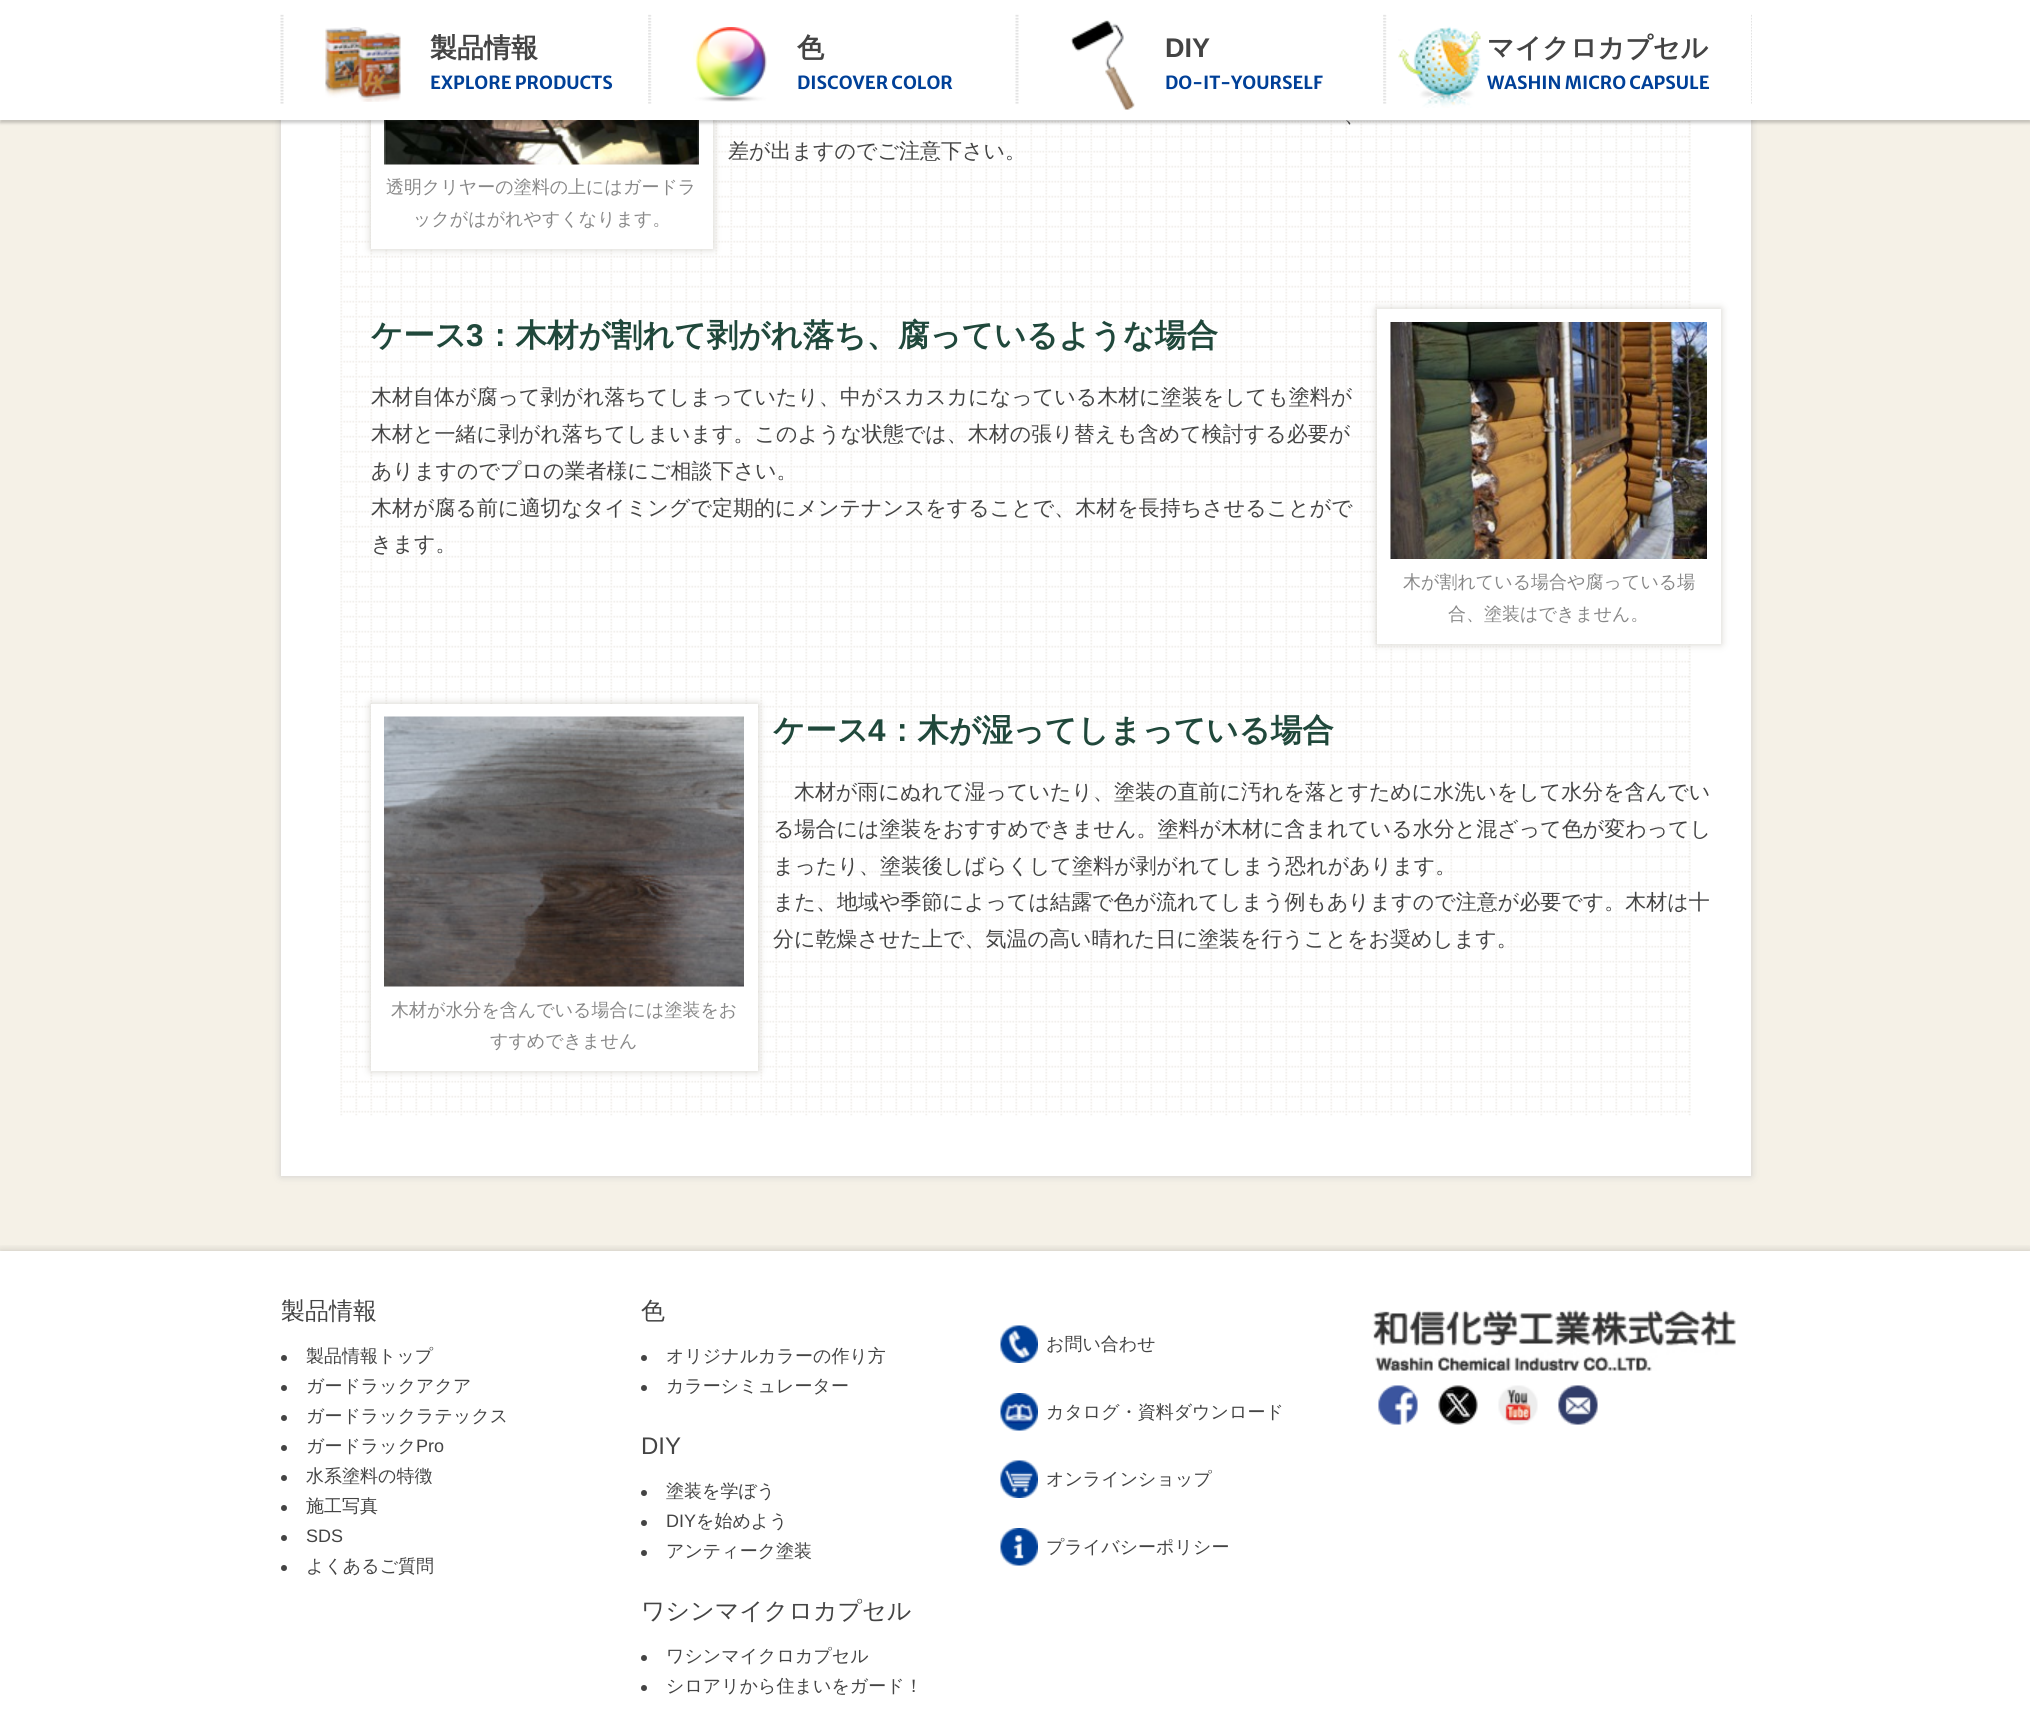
import math
import cairo

surface = cairo.ImageSurface(cairo.FORMAT_RGB24, 2030, 1719)
ctx = cairo.Context(surface)
options = cairo.FontOptions()
options.set_hint_metrics(cairo.HINT_METRICS_OFF)
options.set_hint_style(cairo.HINT_STYLE_NONE)
ctx.set_font_options(options)
ctx.set_miter_limit(4)


def set_color(code):
    ctx.set_source_rgb(*(v / 255 for v in bytes.fromhex(code[-6:])))


def draw_text(x, y, s, family, size, color, bold=False, italic=False):
    ctx.select_font_face(family, cairo.FONT_SLANT_ITALIC if italic else cairo.FONT_SLANT_NORMAL, cairo.FONT_WEIGHT_BOLD if bold else cairo.FONT_WEIGHT_NORMAL)
    ctx.set_font_size(size)
    set_color(color)
    ctx.move_to(x, y)
    ctx.show_text(s)


def fill_rect(x, y, w, h, color):
    set_color(color)
    ctx.rectangle(x, y, w, h)
    ctx.fill()


def rounded_rect(x, y, w, h, r):
    ctx.new_sub_path()
    for i, (u, v) in enumerate([(x + w - r, y + h - r), (x + r, y + h - r), (x + r, y + r), (x + w - r, y + r)]):
        ctx.arc(u, v, r, i * math.pi / 2, (i + 1) * math.pi / 2)
    ctx.close_path()


def draw_shadow(x, y, w, h, r, blur, alpha):
    ctx.push_group_with_content(cairo.CONTENT_ALPHA)
    ctx.set_operator(cairo.OPERATOR_SOURCE)
    for i in range(15, -16, -2):
        e = blur * i / 6
        if min(w, h) + 2 * e > 0:
            ctx.set_source_rgba(0, 0, 0, alpha * math.erfc((i - 1) / 8.5) / 2)
            rounded_rect(x - e, y - e, w + 2 * e, h + 2 * e, max(0, min(r + e + blur * .6, min(w, h) / 2 + e)))
            ctx.fill()
    ctx.mask(ctx.pop_group())


def draw_image(path, x, y, w, h):
    ctx.save()
    ctx.set_source_surface(cairo.ImageSurface.create_from_png(path), x, y)
    ctx.rectangle(x, y, w, h)
    ctx.fill()
    ctx.restore()


set_color("#ffffff")
ctx.paint()
fill_rect(0, 120, 2030, 1131, "#f5f1e7")
set_color("#cccccc")
draw_shadow(281, -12, 1470, 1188, 0, 4, 1)
fill_rect(281, 120, 1470, 1056, "#ffffff")
draw_image("assets/img8.png", 340, 120, 1351, 996)
set_color("#d2d0ca")
draw_shadow(371, -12, 342, 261, 0, 4, 1)
fill_rect(371, 120, 342, 129, "#ffffff")
draw_image("assets/img9.png", 384, 120, 315, 45)
set_color("#000000")
draw_shadow(0, 3, 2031, 120, 0, 1.5, 0.2)
fill_rect(0, 0, 2030, 120, "#ffffff")
draw_image("assets/img1.png", 1751, 14, 1, 90)
draw_image("assets/img2.png", 280, 14, 4, 90)
draw_image("assets/img3.png", 325, 27, 76, 75)
draw_text(430, 57, "製品情報", "WenQuanYi Zen Hei", 27, "#444444", bold=True)
draw_text(430, 89, "EXPLORE PRODUCTS", "Merriweather Sans", 18, "#004098", bold=True)
draw_image("assets/img4.png", 648, 14, 4, 90)
draw_image("assets/img5.png", 693, 27, 74, 75)
draw_text(797, 57, "色", "WenQuanYi Zen Hei", 27, "#444444", bold=True)
draw_text(797, 89, "DISCOVER COLOR", "Merriweather Sans", 18, "#004098", bold=True)
draw_image("assets/img2.png", 1015, 14, 4, 90)
draw_image("assets/img6.png", 1070, 20, 65, 90)
draw_text(1165, 57, "DIY", "Liberation Sans", 27, "#444444", bold=True)
draw_text(1165, 89, "DO-IT-YOURSELF", "Merriweather Sans", 18, "#004098", bold=True)
draw_image("assets/img4.png", 1383, 14, 4, 90)
draw_image("assets/img7.png", 1398, 26, 83, 82)
draw_text(1487, 57, "マイクロカプセル", "WenQuanYi Zen Hei", 27, "#444444", bold=True)
draw_text(1487, 89, "WASHIN MICRO CAPSULE", "Merriweather Sans", 18, "#004098", bold=True)
draw_text(1344, 122, "、", "WenQuanYi Zen Hei Medium", 21, "#444444")
draw_text(728, 158, "差が出ますのでご注意下さい。", "WenQuanYi Zen Hei Medium", 21, "#444444")
draw_text(386, 193, "透明クリヤーの塗料の上にはガードラ", "WenQuanYi Zen Hei Medium", 18, "#888888")
draw_text(413, 225, "ックがはがれやすくなります。", "WenQuanYi Zen Hei Medium", 18, "#888888")
draw_text(371, 346, "ケース", "WenQuanYi Zen Hei", 31.5, "#20483b", bold=True)
draw_text(466, 346, "3", "Liberation Sans", 31.5, "#20483b", bold=True)
draw_text(484, 346, "：木材が割れて剥がれ落ち、腐っているような場合", "WenQuanYi Zen Hei", 31.5, "#20483b", bold=True)
draw_text(371, 404, "木材自体が腐って剥がれ落ちてしまっていたり、中がスカスカになっている木材に塗装をしても塗料が", "WenQuanYi Zen Hei Medium", 21, "#444444")
draw_text(371, 441, "木材と一緒に剥がれ落ちてしまいます。このような状態では、木材の張り替えも含めて検討する必要が", "WenQuanYi Zen Hei Medium", 21, "#444444")
draw_text(371, 478, "ありますのでプロの業者様にご相談下さい。", "WenQuanYi Zen Hei Medium", 21, "#444444")
draw_text(371, 515, "木材が腐る前に適切なタイミングで定期的にメンテナンスをすることで、木材を長持ちさせることがで", "WenQuanYi Zen Hei Medium", 21, "#444444")
draw_text(371, 551, "きます。", "WenQuanYi Zen Hei Medium", 21, "#444444")
set_color("#d2d0ca")
draw_shadow(1377, 309, 344, 335, 0, 4, 1)
fill_rect(1377, 309, 344, 335, "#ffffff")
draw_image("assets/img10.png", 1390, 322, 317, 237)
draw_text(1403, 588, "木が割れている場合や腐っている場", "WenQuanYi Zen Hei Medium", 18, "#888888")
draw_text(1448, 620, "合、塗装はできません。", "WenQuanYi Zen Hei Medium", 18, "#888888")
draw_text(773, 741, "ケース", "WenQuanYi Zen Hei", 31.5, "#20483b", bold=True)
draw_text(868, 741, "4", "Liberation Sans", 31.5, "#20483b", bold=True)
draw_text(886, 741, "：木が湿ってしまっている場合", "WenQuanYi Zen Hei", 31.5, "#20483b", bold=True)
draw_text(794, 799, "木材が雨にぬれて湿っていたり、塗装の直前に汚れを落とすために水洗いをして水分を含んでい", "WenQuanYi Zen Hei Medium", 21, "#444444")
draw_text(773, 836, "る場合には塗装をおすすめできません。塗料が木材に含まれている水分と混ざって色が変わってし", "WenQuanYi Zen Hei Medium", 21, "#444444")
draw_text(773, 873, "まったり、塗装後しばらくして塗料が剥がれてしまう恐れがあります。", "WenQuanYi Zen Hei Medium", 21, "#444444")
draw_text(773, 909, "また、地域や季節によっては結露で色が流れてしまう例もありますので注意が必要です。木材は十", "WenQuanYi Zen Hei Medium", 21, "#444444")
draw_text(773, 946, "分に乾燥させた上で、気温の高い晴れた日に塗装を行うことをお奨めします。", "WenQuanYi Zen Hei Medium", 21, "#444444")
set_color("#d2d0ca")
draw_shadow(371, 704, 387, 367, 0, 4, 1)
fill_rect(371, 704, 387, 367, "#ffffff")
draw_image("assets/img11.png", 384, 716, 360, 271)
draw_text(391, 1016, "木材が水分を含んでいる場合には塗装をお", "WenQuanYi Zen Hei Medium", 18, "#888888")
draw_text(490, 1047, "すすめできません", "WenQuanYi Zen Hei Medium", 18, "#888888")
ctx.save()
ctx.rectangle(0, 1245, 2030, 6)
ctx.clip()
set_color("#000000")
draw_shadow(0, 1251, 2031, 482, 0, 4.5, 0.2)
ctx.restore()
draw_text(281, 1319, "製品情報", "WenQuanYi Zen Hei Medium", 24, "#444444")
ctx.new_path()
ctx.arc(284, 1358, 3, 0, 2 * math.pi)
ctx.fill()
draw_text(306, 1362, "製品情報トップ", "WenQuanYi Zen Hei Medium", 18, "#444444")
ctx.new_path()
ctx.arc(284, 1388, 3, 0, 2 * math.pi)
ctx.fill()
draw_text(306, 1392, "ガードラックアクア", "WenQuanYi Zen Hei Medium", 18, "#444444")
ctx.new_path()
ctx.arc(284, 1418, 3, 0, 2 * math.pi)
ctx.fill()
draw_text(306, 1422, "ガードラックラテックス", "WenQuanYi Zen Hei Medium", 18, "#444444")
ctx.new_path()
ctx.arc(284, 1448, 3, 0, 2 * math.pi)
ctx.fill()
draw_text(306, 1452, "ガードラック", "WenQuanYi Zen Hei Medium", 18, "#444444")
draw_text(416, 1452, "Pro", "Liberation Sans", 18, "#444444")
ctx.new_path()
ctx.arc(284, 1478, 3, 0, 2 * math.pi)
ctx.fill()
draw_text(306, 1482, "水系塗料の特徴", "WenQuanYi Zen Hei Medium", 18, "#444444")
ctx.new_path()
ctx.arc(284, 1508, 3, 0, 2 * math.pi)
ctx.fill()
draw_text(306, 1512, "施工写真", "WenQuanYi Zen Hei Medium", 18, "#444444")
ctx.new_path()
ctx.arc(284, 1538, 3, 0, 2 * math.pi)
ctx.fill()
draw_text(306, 1542, "SDS", "Liberation Sans", 18, "#444444")
ctx.new_path()
ctx.arc(284, 1568, 3, 0, 2 * math.pi)
ctx.fill()
draw_text(306, 1572, "よくあるご質問", "WenQuanYi Zen Hei Medium", 18, "#444444")
draw_text(641, 1319, "色", "WenQuanYi Zen Hei Medium", 24, "#444444")
ctx.new_path()
ctx.arc(644, 1358, 3, 0, 2 * math.pi)
ctx.fill()
draw_text(666, 1362, "オリジナルカラーの作り方", "WenQuanYi Zen Hei Medium", 18, "#444444")
ctx.new_path()
ctx.arc(644, 1388, 3, 0, 2 * math.pi)
ctx.fill()
draw_text(666, 1392, "カラーシミュレーター", "WenQuanYi Zen Hei Medium", 18, "#444444")
draw_text(641, 1454, "DIY", "Liberation Sans", 24, "#444444")
ctx.new_path()
ctx.arc(644, 1493, 3, 0, 2 * math.pi)
ctx.fill()
draw_text(666, 1497, "塗装を学ぼう", "WenQuanYi Zen Hei Medium", 18, "#444444")
ctx.new_path()
ctx.arc(644, 1523, 3, 0, 2 * math.pi)
ctx.fill()
draw_text(666, 1527, "DIY", "Liberation Sans", 18, "#444444")
draw_text(696, 1527, "を始めよう", "WenQuanYi Zen Hei Medium", 18, "#444444")
ctx.new_path()
ctx.arc(644, 1553, 3, 0, 2 * math.pi)
ctx.fill()
draw_text(666, 1557, "アンティーク塗装", "WenQuanYi Zen Hei Medium", 18, "#444444")
draw_text(641, 1619, "ワシンマイクロカプセル", "WenQuanYi Zen Hei Medium", 24, "#444444")
ctx.new_path()
ctx.arc(644, 1658, 3, 0, 2 * math.pi)
ctx.fill()
draw_text(666, 1662, "ワシンマイクロカプセル", "WenQuanYi Zen Hei Medium", 18, "#444444")
ctx.new_path()
ctx.arc(644, 1688, 3, 0, 2 * math.pi)
ctx.fill()
draw_text(666, 1692, "シロアリから住まいをガード！", "WenQuanYi Zen Hei Medium", 18, "#444444")
draw_image("assets/img12.png", 1000, 1325, 38, 38)
draw_text(1046, 1350, "お問い合わせ", "WenQuanYi Zen Hei Medium", 18, "#444444")
draw_image("assets/img13.png", 1000, 1393, 38, 38)
draw_text(1046, 1418, "カタログ・資料ダウンロード", "WenQuanYi Zen Hei Medium", 18, "#444444")
draw_image("assets/img14.png", 1000, 1460, 38, 38)
draw_text(1046, 1485, "オンラインショップ", "WenQuanYi Zen Hei Medium", 18, "#444444")
draw_image("assets/img15.png", 1000, 1528, 38, 38)
draw_text(1046, 1553, "プライバシーポリシー", "WenQuanYi Zen Hei Medium", 18, "#444444")
draw_image("assets/img16.png", 1373, 1310, 363, 61)
draw_image("assets/img17.png", 1378, 1385, 40, 40)
draw_image("assets/img18.png", 1438, 1385, 40, 40)
draw_image("assets/img19.png", 1498, 1385, 40, 40)
draw_image("assets/img20.png", 1558, 1385, 40, 40)
surface.write_to_png("output.png")
